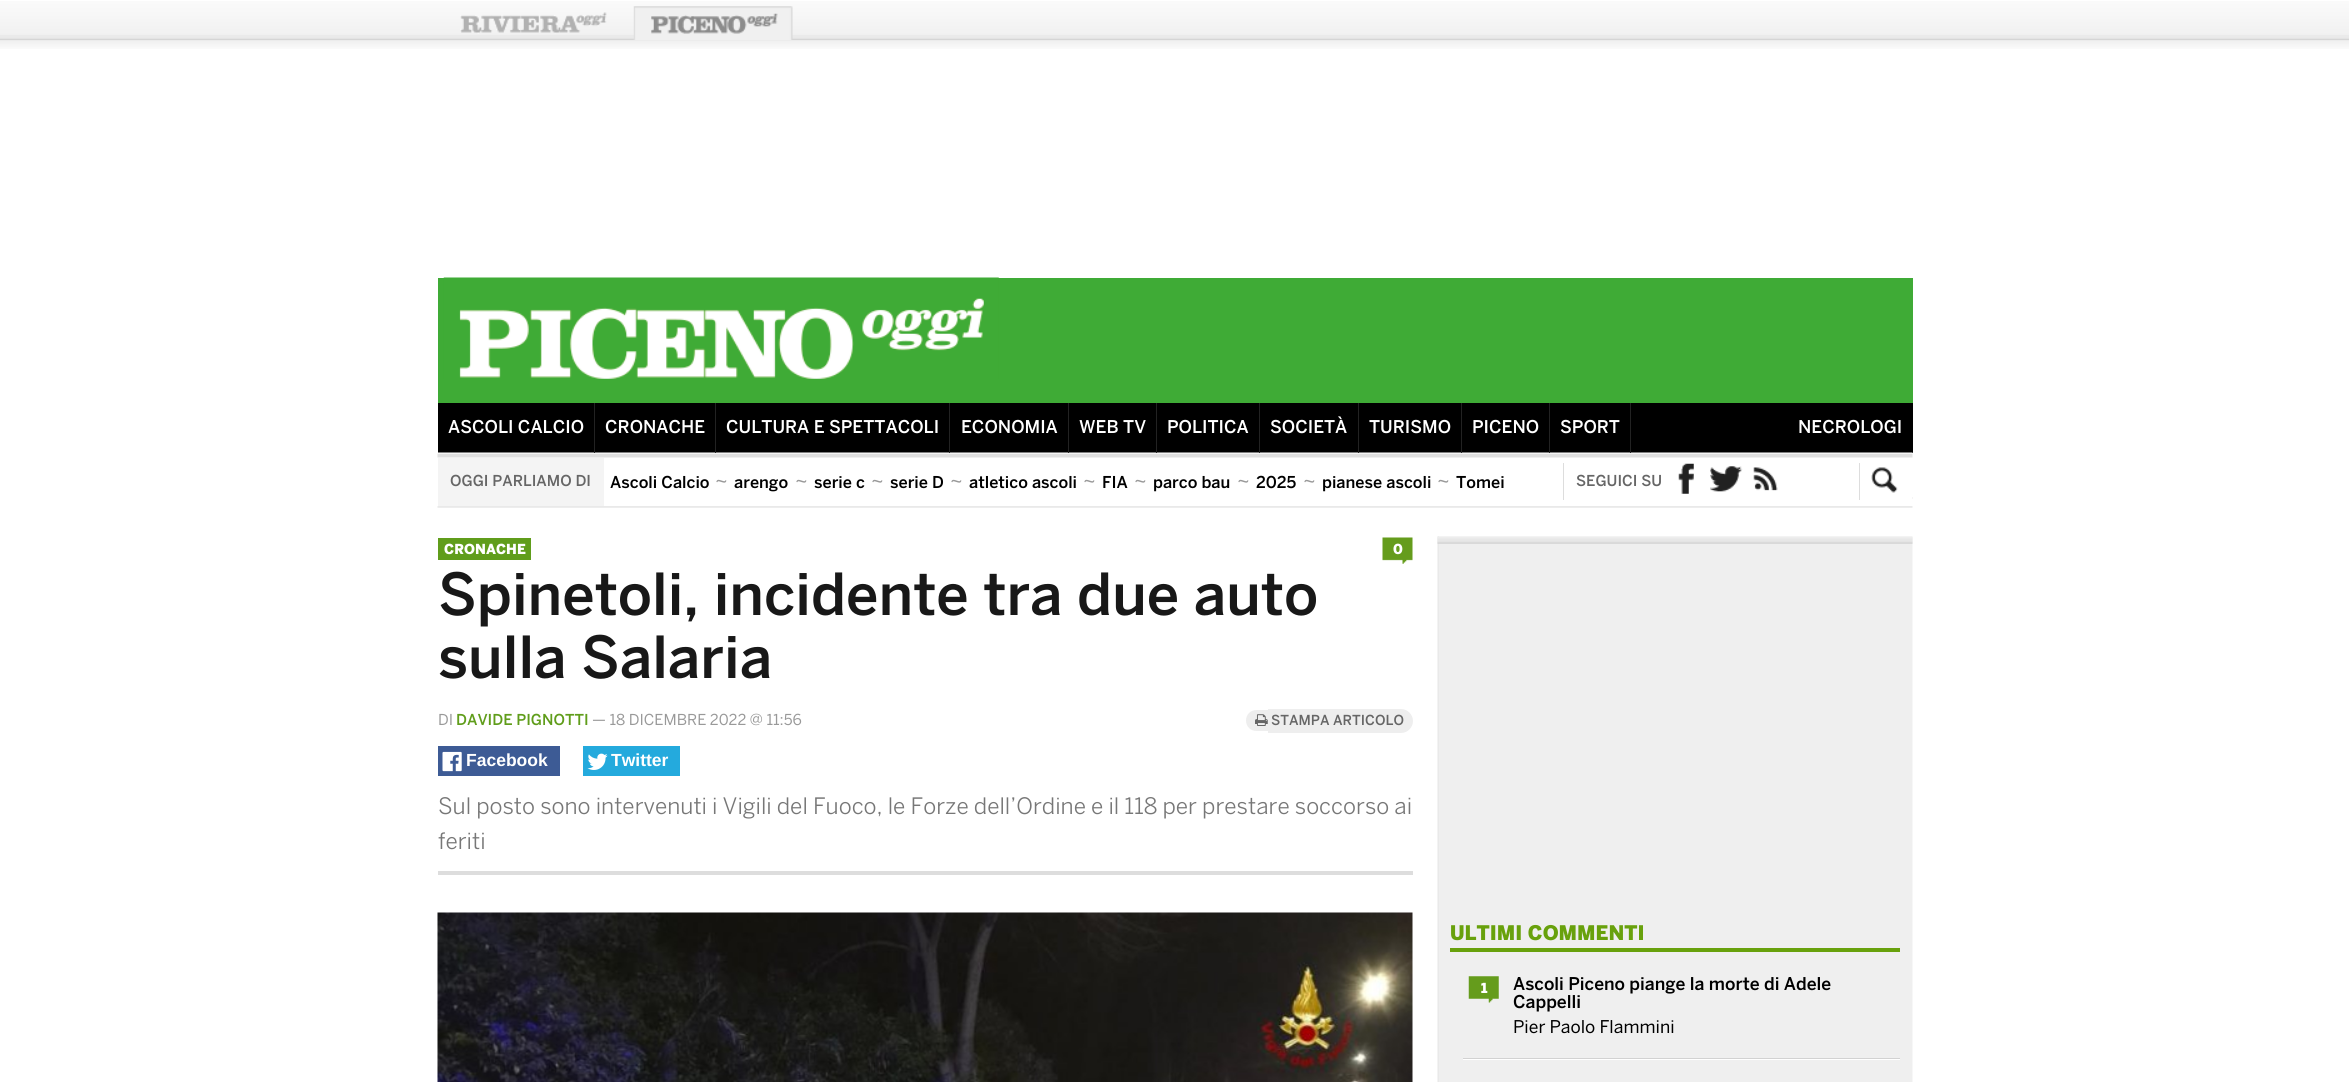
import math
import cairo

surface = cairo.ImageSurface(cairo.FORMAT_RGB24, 2349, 1082)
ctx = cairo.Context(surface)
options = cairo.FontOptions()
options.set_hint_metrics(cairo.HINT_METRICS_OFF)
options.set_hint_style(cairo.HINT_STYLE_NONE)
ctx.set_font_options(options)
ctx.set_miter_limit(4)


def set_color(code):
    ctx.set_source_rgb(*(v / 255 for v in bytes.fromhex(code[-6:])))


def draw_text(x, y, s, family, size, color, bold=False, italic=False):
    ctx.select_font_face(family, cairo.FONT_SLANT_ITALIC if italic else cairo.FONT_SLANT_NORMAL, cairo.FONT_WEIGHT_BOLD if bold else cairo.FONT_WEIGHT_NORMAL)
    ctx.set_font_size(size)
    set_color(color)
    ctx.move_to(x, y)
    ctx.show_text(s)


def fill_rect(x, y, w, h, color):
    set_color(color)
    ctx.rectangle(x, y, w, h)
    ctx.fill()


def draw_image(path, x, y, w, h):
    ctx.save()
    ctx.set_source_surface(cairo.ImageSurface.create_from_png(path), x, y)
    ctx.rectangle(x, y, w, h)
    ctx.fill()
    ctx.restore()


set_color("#ffffff")
ctx.paint()
draw_image("assets/img1.png", 0, 1, 2349, 48)
draw_image("assets/img2.png", 460, 12, 147, 22)
draw_image("assets/img3.png", 633, 6, 160, 34)
fill_rect(438, 278, 1475, 125, "#3fab36")
draw_image("assets/img4.png", 443, 277, 556, 102)
fill_rect(438, 403, 1475, 50, "#000000")
draw_image("assets/img5.png", 437, 452, 1476, 56)
fill_rect(594, 403, 1, 50, "#222222")
draw_text(448, 433, "ASCOLI CALCIO", "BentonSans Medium", 17.5, "#ffffff")
fill_rect(715, 403, 1, 50, "#222222")
draw_text(605, 433, "CRONACHE", "BentonSans Medium", 17.5, "#ffffff")
fill_rect(949, 403, 1, 50, "#222222")
draw_text(726, 433, "CULTURA E SPETTACOLI", "BentonSans Medium", 17.5, "#ffffff")
fill_rect(1068, 403, 1, 50, "#222222")
draw_text(961, 433, "ECONOMIA", "BentonSans Medium", 17.5, "#ffffff")
fill_rect(1156, 403, 1, 50, "#222222")
draw_text(1079, 433, "WEB TV", "BentonSans Medium", 17.5, "#ffffff")
fill_rect(1259, 403, 1, 50, "#222222")
draw_text(1167, 433, "POLITICA", "BentonSans Medium", 17.5, "#ffffff")
fill_rect(1358, 403, 1, 50, "#222222")
draw_text(1270, 433, "SOCIETÀ", "BentonSans Medium", 17.5, "#ffffff")
fill_rect(1461, 403, 1, 50, "#222222")
draw_text(1369, 433, "TURISMO", "BentonSans Medium", 17.5, "#ffffff")
fill_rect(1549, 403, 1, 50, "#222222")
draw_text(1472, 433, "PICENO", "BentonSans Medium", 17.5, "#ffffff")
fill_rect(1630, 403, 1, 50, "#222222")
draw_text(1560, 433, "SPORT", "BentonSans Medium", 17.5, "#ffffff")
draw_text(1798, 433, "NECROLOGI", "BentonSans Medium", 17.5, "#ffffff")
fill_rect(438, 458, 166, 48, "#f4f4f4")
draw_text(450, 486, "OGGI PARLIAMO DI", "BentonSans Medium", 15, "#666666")
draw_text(610, 488, "Ascoli Calcio", "BentonSans Medium", 16.25, "#000000")
draw_text(715, 488, "~", "BentonSans", 20, "#999999")
draw_text(734, 488, "arengo", "BentonSans Medium", 16.25, "#000000")
draw_text(795, 488, "~", "BentonSans", 20, "#999999")
draw_text(814, 488, "serie c", "BentonSans Medium", 16.25, "#000000")
draw_text(871, 488, "~", "BentonSans", 20, "#999999")
draw_text(890, 488, "serie D", "BentonSans Medium", 16.25, "#000000")
draw_text(950, 488, "~", "BentonSans", 20, "#999999")
draw_text(969, 488, "atletico ascoli", "BentonSans Medium", 16.25, "#000000")
draw_text(1083, 488, "~", "BentonSans", 20, "#999999")
draw_text(1102, 488, "FIA", "BentonSans Medium", 16.25, "#000000")
draw_text(1134, 488, "~", "BentonSans", 20, "#999999")
draw_text(1153, 488, "parco bau", "BentonSans Medium", 16.25, "#000000")
draw_text(1237, 488, "~", "BentonSans", 20, "#999999")
draw_text(1256, 488, "2025", "BentonSans Medium", 16.25, "#000000")
draw_text(1303, 488, "~", "BentonSans", 20, "#999999")
draw_text(1322, 488, "pianese ascoli", "BentonSans Medium", 16.25, "#000000")
draw_text(1437, 488, "~", "BentonSans", 20, "#999999")
draw_text(1456, 488, "Tomei", "BentonSans Medium", 16.25, "#000000")
fill_rect(1563, 463, 1, 37, "#dddddd")
draw_text(1576, 486, "SEGUICI SU", "BentonSans Medium", 15, "#666666")
draw_image("assets/img6.png", 1678, 463, 16, 31)
draw_image("assets/img7.png", 1710, 466, 33, 26)
draw_image("assets/img8.png", 1753, 467, 25, 24)
draw_image("assets/img9.png", 1871, 467, 27, 26)
fill_rect(1859, 463, 1, 37, "#dddddd")
ctx.save()
ctx.rectangle(1563, 453, 350, 62)
ctx.clip()
ctx.new_path()
ctx.move_to(1912.5, 498)
ctx.line_to(2202.5, 498)
ctx.set_line_width(1.2)
ctx.set_dash([3.75, 2.48])
ctx.stroke()
ctx.restore()
fill_rect(438, 538, 93, 22, "#609d1b")
draw_text(444, 554, "CRONACHE", "BentonSans Black", 13.75, "#ffffff")
draw_text(438, 615, "Spinetoli, incidente tra due auto", "BentonSans Medium", 57.5, "#181818")
draw_text(438, 678, "sulla Salaria", "BentonSans Medium", 57.5, "#181818")
draw_text(438, 725, "DI", "BentonSans", 15, "#999999")
draw_text(456, 725, "DAVIDE PIGNOTTI", "BentonSans Medium", 15, "#609d1b")
draw_text(592, 725, "— 18 DICEMBRE 2022 @ 11:56", "BentonSans", 15, "#999999")
set_color("#eeeeee")
ctx.new_path()
ctx.move_to(1256.5, 710)
ctx.line_to(1268, 710)
ctx.line_to(1268, 731)
ctx.line_to(1256.5, 731)
ctx.curve_to(1250.5, 731, 1246, 726.5, 1246, 720.5)
ctx.curve_to(1246, 714.5, 1250.5, 710, 1256.5, 710)
ctx.close_path()
ctx.fill()
ctx.new_path()
ctx.move_to(1268, 709)
ctx.line_to(1401, 709)
ctx.curve_to(1407.5, 709, 1413, 714.5, 1413, 721)
ctx.curve_to(1413, 727.5, 1407.5, 733, 1401, 733)
ctx.line_to(1268, 733)
ctx.close_path()
ctx.fill()
draw_image("assets/img10.png", 1255, 714, 13, 12)
draw_text(1271, 725, "STAMPA ARTICOLO", "BentonSans Medium", 13.75, "#666666")
draw_image("assets/img11.png", 1382, 537, 31, 27)
draw_text(1393, 554, "0", "BentonSans Black", 13.75, "#ffffff")
fill_rect(438, 746, 122, 30, "#3d5b95")
draw_image("assets/img12.png", 442, 751, 20, 21)
draw_text(466, 766, "Facebook", "Liberation Sans", 17.5, "#ffffff", bold=True)
fill_rect(583, 746, 97, 30, "#24aadd")
draw_image("assets/img13.png", 587, 753, 21, 17)
draw_text(611, 766, "Twitter", "Liberation Sans", 17.5, "#ffffff", bold=True)
fill_rect(438, 871, 975, 4, "#dddddd")
draw_text(438, 814, "Sul posto sono intervenuti i Vigili del Fuoco, le Forze dell’Ordine e il 118 per prestare soccorso ai", "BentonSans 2", 22.5, "#777777")
draw_text(438, 849, "feriti", "BentonSans 2", 22.5, "#777777")
draw_image("assets/img14.png", 437, 912, 976, 170)
draw_image("assets/img15.png", 1437, 536, 476, 546)
draw_image("assets/img16.png", 1437, 537, 476, 7)
fill_rect(1450, 948, 450, 4, "#68a10c")
draw_text(1450, 940, "ULTIMI COMMENTI", "BentonSans Black", 20, "#68a10c")
fill_rect(1463, 1059, 437, 1, "#ffffff")
fill_rect(1463, 1058, 437, 1, "#d2d2d2")
draw_image("assets/img17.png", 1468, 976, 31, 27)
draw_text(1481, 993, "1", "BentonSans Black", 13.75, "#ffffff")
draw_text(1513, 990, "Ascoli Piceno piange la morte di Adele", "BentonSans Medium", 17.5, "#000000")
draw_text(1513, 1008, "Cappelli", "BentonSans Medium", 17.5, "#000000")
draw_text(1513, 1033, "Pier Paolo Flammini", "BentonSans", 17.5, "#000000")
surface.write_to_png("output.png")
